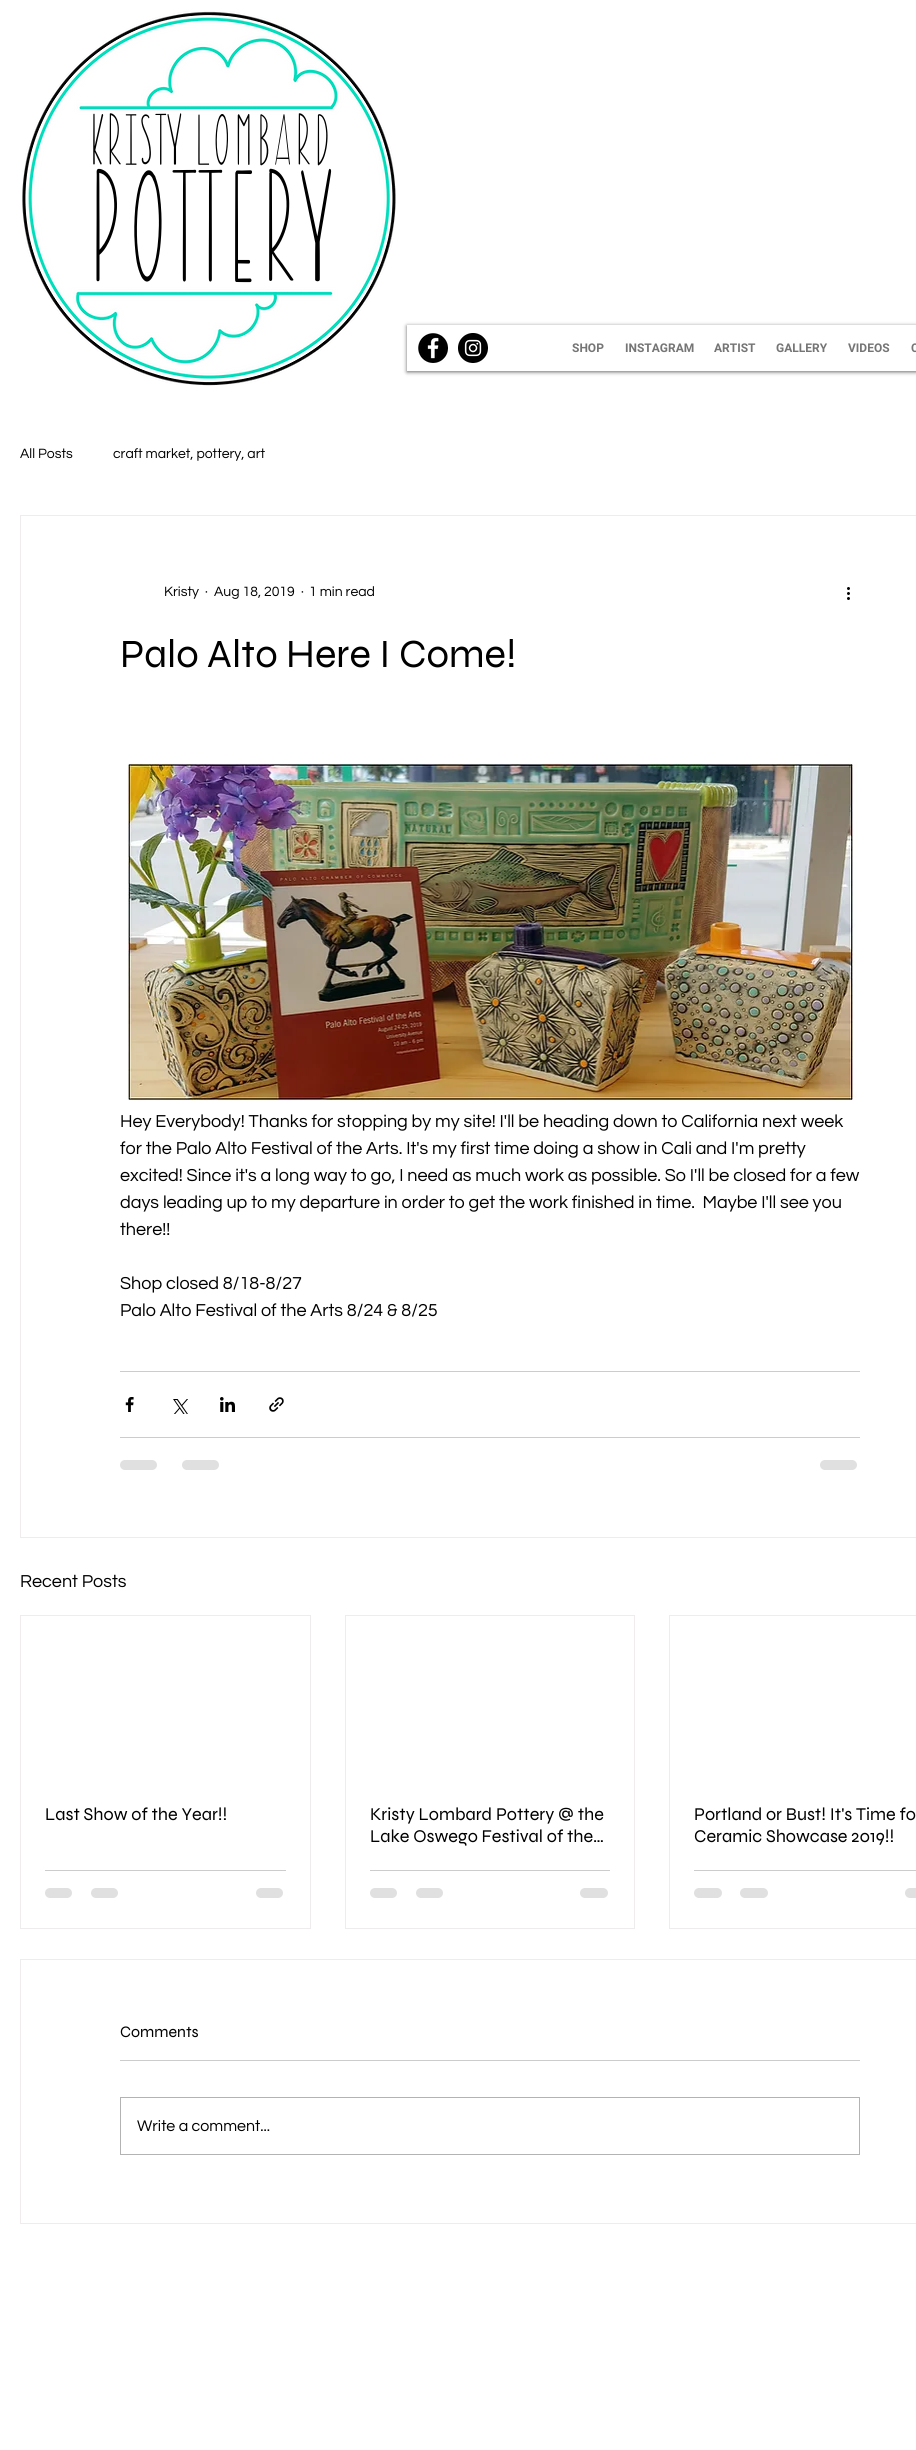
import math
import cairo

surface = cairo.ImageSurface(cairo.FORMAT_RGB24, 916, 2450)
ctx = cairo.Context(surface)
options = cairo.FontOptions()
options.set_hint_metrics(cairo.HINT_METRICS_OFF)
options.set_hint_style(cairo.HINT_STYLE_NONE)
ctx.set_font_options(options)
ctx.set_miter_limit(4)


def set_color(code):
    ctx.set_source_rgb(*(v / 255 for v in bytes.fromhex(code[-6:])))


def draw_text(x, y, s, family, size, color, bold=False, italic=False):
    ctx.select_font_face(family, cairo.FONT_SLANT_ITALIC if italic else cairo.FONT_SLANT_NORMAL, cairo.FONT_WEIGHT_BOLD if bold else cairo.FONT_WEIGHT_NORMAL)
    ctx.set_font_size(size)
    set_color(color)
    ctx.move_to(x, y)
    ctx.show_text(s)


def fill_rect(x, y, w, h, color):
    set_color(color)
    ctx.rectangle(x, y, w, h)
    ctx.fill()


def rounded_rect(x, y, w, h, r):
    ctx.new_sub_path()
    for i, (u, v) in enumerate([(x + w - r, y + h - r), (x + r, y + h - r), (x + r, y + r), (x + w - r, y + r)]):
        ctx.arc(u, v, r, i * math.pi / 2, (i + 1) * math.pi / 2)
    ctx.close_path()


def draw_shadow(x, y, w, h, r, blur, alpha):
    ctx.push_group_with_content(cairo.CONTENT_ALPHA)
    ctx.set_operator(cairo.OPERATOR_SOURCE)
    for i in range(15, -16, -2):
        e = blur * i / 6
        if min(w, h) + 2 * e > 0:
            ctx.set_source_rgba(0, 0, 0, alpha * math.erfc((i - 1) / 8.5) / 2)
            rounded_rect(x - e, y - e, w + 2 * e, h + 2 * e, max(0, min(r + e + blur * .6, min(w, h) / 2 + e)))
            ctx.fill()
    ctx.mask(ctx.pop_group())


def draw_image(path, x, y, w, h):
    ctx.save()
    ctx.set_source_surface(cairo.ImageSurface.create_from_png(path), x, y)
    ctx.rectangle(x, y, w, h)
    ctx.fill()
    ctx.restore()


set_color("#ffffff")
ctx.paint()
draw_image("assets/img1.png", 22, 11, 374, 375)
draw_text(88, 165, "KRISTY LOMBARD", "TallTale", 53, "#000000")
draw_text(85, 282, "POTTERY", "TallTale", 116, "#000000")
ctx.save()
ctx.set_fill_rule(cairo.FILL_RULE_EVEN_ODD)
ctx.new_path()
ctx.move_to(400, 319)
ctx.line_to(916, 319)
ctx.line_to(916, 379)
ctx.line_to(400, 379)
ctx.close_path()
ctx.move_to(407, 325)
ctx.line_to(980, 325)
ctx.line_to(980, 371)
ctx.line_to(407, 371)
ctx.close_path()
ctx.clip()
set_color("#000000")
draw_shadow(407, 326, 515, 46, 0, 2, 0.6)
ctx.restore()
draw_image("assets/img2.png", 418, 333, 30, 30)
draw_image("assets/img3.png", 458, 333, 30, 30)
draw_text(572, 352, "SHOP", "Roboto", 12, "#757575", bold=True)
draw_text(625, 352, "INSTAGRAM", "Roboto", 12, "#757575", bold=True)
draw_text(714, 352, "ARTIST", "Roboto", 12, "#757575", bold=True)
draw_text(776, 352, "GALLERY", "Roboto", 12, "#757575", bold=True)
draw_text(848, 352, "VIDEOS", "Roboto", 12, "#757575", bold=True)
draw_text(911, 352, "C", "Roboto", 12, "#757575", bold=True)
draw_text(20, 458, "All Posts", "Questrial", 14, "#000000")
draw_text(113, 458, "craft market, pottery, art", "Questrial", 14, "#000000")
ctx.rectangle(20.5, 515.5, 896, 1022)
set_color("#eeecec")
ctx.set_line_width(1)
ctx.stroke()
draw_text(164, 596, "Kristy", "Questrial", 14, "#000000")
draw_text(205, 596, "·", "Questrial", 14, "#000000")
draw_text(214, 596, "Aug 18, 2019", "Questrial", 14, "#000000")
draw_text(301, 596, "·", "Questrial", 14, "#000000")
draw_text(309, 596, "1 min read", "Questrial", 14, "#000000")
draw_image("assets/img4.png", 847, 587, 3, 13)
draw_text(120, 667, "Palo Alto Here I Come!", "Syne", 40, "#000000")
draw_image("assets/img5.png", 127, 763, 730, 338)
draw_text(120, 1127, "Hey Everybody! Thanks for stopping by my site! I'll be heading down to California next week", "Questrial", 18, "#000000")
draw_text(120, 1154, "for the Palo Alto Festival of the Arts. It's my first time doing a show in Cali and I'm pretty", "Questrial", 18, "#000000")
draw_text(120, 1181, "excited! Since it's a long way to go, I need as much work as possible. So I'll be closed for a few", "Questrial", 18, "#000000")
draw_text(120, 1208, "days leading up to my departure in order to get the work finished in time.  Maybe I'll see you", "Questrial", 18, "#000000")
draw_text(120, 1235, "there!!", "Questrial", 18, "#000000")
draw_text(120, 1289, "Shop closed 8/18-8/27", "Questrial", 18, "#000000")
draw_text(120, 1316, "Palo Alto Festival of the Arts 8/24 & 8/25", "Questrial", 18, "#000000")
fill_rect(120, 1371, 740, 1, "#cccccc")
draw_image("assets/img6.png", 125, 1397, 9, 15)
draw_image("assets/img7.png", 173, 1399, 15, 15)
draw_image("assets/img8.png", 220, 1397, 15, 15)
draw_image("assets/img9.png", 269, 1397, 15, 15)
fill_rect(120, 1437, 740, 1, "#cccccc")
set_color("#e0e0e0")
rounded_rect(120, 1460, 37, 10, 5)
ctx.fill()
rounded_rect(182, 1460, 37, 10, 5)
ctx.fill()
rounded_rect(820, 1460, 37, 10, 5)
ctx.fill()
draw_text(20, 1587, "Recent Posts", "Questrial", 18, "#000000")
ctx.rectangle(20.5, 1615.5, 290, 313)
set_color("#eeecec")
ctx.stroke()
draw_text(45, 1820, "Last Show of the Year!!", "Syne", 18, "#000000")
fill_rect(45, 1870, 241, 1, "#cccccc")
set_color("#e0e0e0")
rounded_rect(45, 1888, 27, 10, 5)
ctx.fill()
rounded_rect(91, 1888, 27, 10, 5)
ctx.fill()
rounded_rect(256, 1888, 27, 10, 5)
ctx.fill()
ctx.rectangle(345.5, 1615.5, 289, 313)
set_color("#eeecec")
ctx.stroke()
draw_text(370, 1820, "Kristy Lombard Pottery @ the", "Syne", 18, "#000000")
draw_text(370, 1842, "Lake Oswego Festival of the…", "Syne", 18, "#000000")
fill_rect(370, 1870, 240, 1, "#cccccc")
set_color("#e0e0e0")
rounded_rect(370, 1888, 27, 10, 5)
ctx.fill()
rounded_rect(416, 1888, 27, 10, 5)
ctx.fill()
rounded_rect(580, 1888, 28, 10, 5)
ctx.fill()
ctx.rectangle(669.5, 1615.5, 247, 313)
set_color("#eeecec")
ctx.stroke()
draw_text(694, 1820, "Portland or Bust! It's Time fo", "Syne", 18, "#000000")
draw_text(694, 1842, "Ceramic Showcase 2019!!", "Syne", 18, "#000000")
fill_rect(694, 1870, 222, 1, "#cccccc")
set_color("#e0e0e0")
rounded_rect(694, 1888, 28, 10, 5)
ctx.fill()
rounded_rect(740, 1888, 28, 10, 5)
ctx.fill()
rounded_rect(905, 1888, 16, 10, 5)
ctx.fill()
ctx.rectangle(20.5, 1959.5, 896, 264)
set_color("#eeecec")
ctx.stroke()
draw_text(120, 2037, "Comments", "Syne", 16, "#000000")
fill_rect(120, 2060, 740, 1, "#cccccc")
ctx.rectangle(120.5, 2097.5, 739, 57)
set_color("#b3b3b3")
ctx.stroke()
draw_text(137, 2131, "Write a comment...", "Questrial", 16, "#000000")
surface.write_to_png("output.png")
